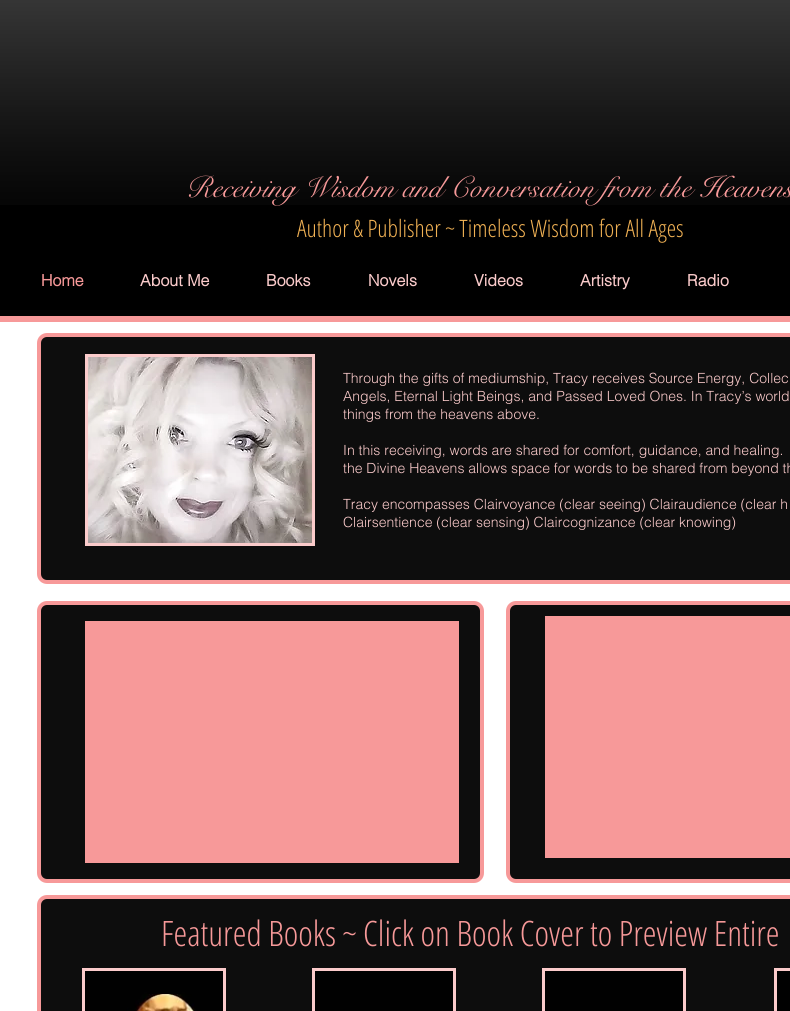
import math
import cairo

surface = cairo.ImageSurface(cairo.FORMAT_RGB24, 790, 1011)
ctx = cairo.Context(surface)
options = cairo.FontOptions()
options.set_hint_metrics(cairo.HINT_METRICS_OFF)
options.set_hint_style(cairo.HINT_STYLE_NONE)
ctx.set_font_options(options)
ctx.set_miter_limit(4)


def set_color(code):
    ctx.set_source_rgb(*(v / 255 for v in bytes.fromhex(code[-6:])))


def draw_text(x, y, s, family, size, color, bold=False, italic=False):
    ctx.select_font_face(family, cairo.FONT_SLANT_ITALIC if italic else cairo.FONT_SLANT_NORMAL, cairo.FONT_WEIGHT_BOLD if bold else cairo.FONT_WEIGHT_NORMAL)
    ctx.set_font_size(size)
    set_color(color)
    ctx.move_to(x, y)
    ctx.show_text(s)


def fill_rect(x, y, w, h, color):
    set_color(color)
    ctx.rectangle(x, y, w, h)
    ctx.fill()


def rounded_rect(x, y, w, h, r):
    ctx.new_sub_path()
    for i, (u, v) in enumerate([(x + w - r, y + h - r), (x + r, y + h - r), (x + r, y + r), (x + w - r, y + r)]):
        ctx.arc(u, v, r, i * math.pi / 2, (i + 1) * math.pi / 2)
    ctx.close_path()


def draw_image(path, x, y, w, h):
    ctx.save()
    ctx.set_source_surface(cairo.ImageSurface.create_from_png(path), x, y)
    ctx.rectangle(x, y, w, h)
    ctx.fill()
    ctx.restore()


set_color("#000000")
ctx.paint()
draw_image("assets/img1.png", 0, 0, 790, 205)
fill_rect(0, 316, 790, 6, "#f79999")
draw_text(186, 197, "Receiving Wisdom and Conversation from the Heavens", "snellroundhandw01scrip", 30, "#f79999")
draw_text(297, 237, "Author & Publisher ~ Timeless Wisdom for All Ages", "Open Sans Condensed Light", 24, "#f0b154")
draw_text(41, 286, "Home", "helvetica", 16, "#f79999", bold=True)
draw_text(140, 286, "About Me", "helvetica", 16, "#fbcbcb", bold=True)
draw_text(266, 286, "Books", "helvetica", 16, "#fbcbcb", bold=True)
draw_text(368, 286, "Novels", "helvetica", 16, "#fbcbcb", bold=True)
draw_text(474, 286, "Videos", "helvetica", 16, "#fbcbcb", bold=True)
draw_text(580, 286, "Artistry", "helvetica", 16, "#fbcbcb", bold=True)
draw_text(687, 286, "Radio", "helvetica", 16, "#fbcbcb", bold=True)
fill_rect(0, 322, 790, 689, "#ffffff")
set_color("#0d0d0d")
rounded_rect(39, 335, 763, 247, 8)
ctx.fill_preserve()
set_color("#f79999")
ctx.set_line_width(4)
ctx.stroke()
fill_rect(85, 354, 230, 192, "#fbcbcb")
draw_image("assets/img2.png", 88, 357, 224, 186)
draw_text(343, 383, "Through the gifts of mediumship, Tracy receives Source Energy, Collec", "helvetica Light", 14, "#fbcbcb")
draw_text(343, 401, "Angels, Eternal Light Beings, and Passed Loved Ones. In Tracy’s world", "helvetica Light", 14, "#fbcbcb")
draw_text(343, 419, "things from the heavens above.", "helvetica Light", 14, "#fbcbcb")
draw_text(343, 455, "In this receiving, words are shared for comfort, guidance, and healing.", "helvetica Light", 14, "#fbcbcb")
draw_text(343, 473, "the Divine Heavens allows space for words to be shared from beyond th", "helvetica Light", 14, "#fbcbcb")
draw_text(343, 509, "Tracy encompasses Clairvoyance (clear seeing) Clairaudience (clear h", "helvetica Light", 14, "#fbcbcb")
draw_text(343, 527, "Clairsentience (clear sensing) Claircognizance (clear knowing)", "helvetica Light", 14, "#fbcbcb")
set_color("#0d0d0d")
rounded_rect(39, 603, 443, 278, 8)
ctx.fill_preserve()
set_color("#f79999")
ctx.stroke()
fill_rect(85, 621, 374, 242, "#f79999")
set_color("#0d0d0d")
rounded_rect(508, 603, 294, 278, 8)
ctx.fill_preserve()
set_color("#f79999")
ctx.stroke()
fill_rect(545, 616, 245, 242, "#f79999")
set_color("#0d0d0d")
rounded_rect(39, 897, 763, 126, 8)
ctx.fill_preserve()
set_color("#f79999")
ctx.stroke()
draw_text(161, 946, "Featured Books ~ Click on Book Cover to Preview Entire", "Open Sans Condensed Light", 35, "#f79999")
fill_rect(82, 968, 144, 43, "#fbcbcb")
draw_image("assets/img3.png", 85, 971, 138, 40)
fill_rect(312, 968, 144, 43, "#fbcbcb")
fill_rect(315, 971, 138, 40, "#010101")
fill_rect(542, 968, 144, 43, "#fbcbcb")
fill_rect(545, 971, 138, 40, "#010101")
fill_rect(774, 968, 16, 43, "#fbcbcb")
fill_rect(777, 971, 13, 40, "#010101")
surface.write_to_png("output.png")
